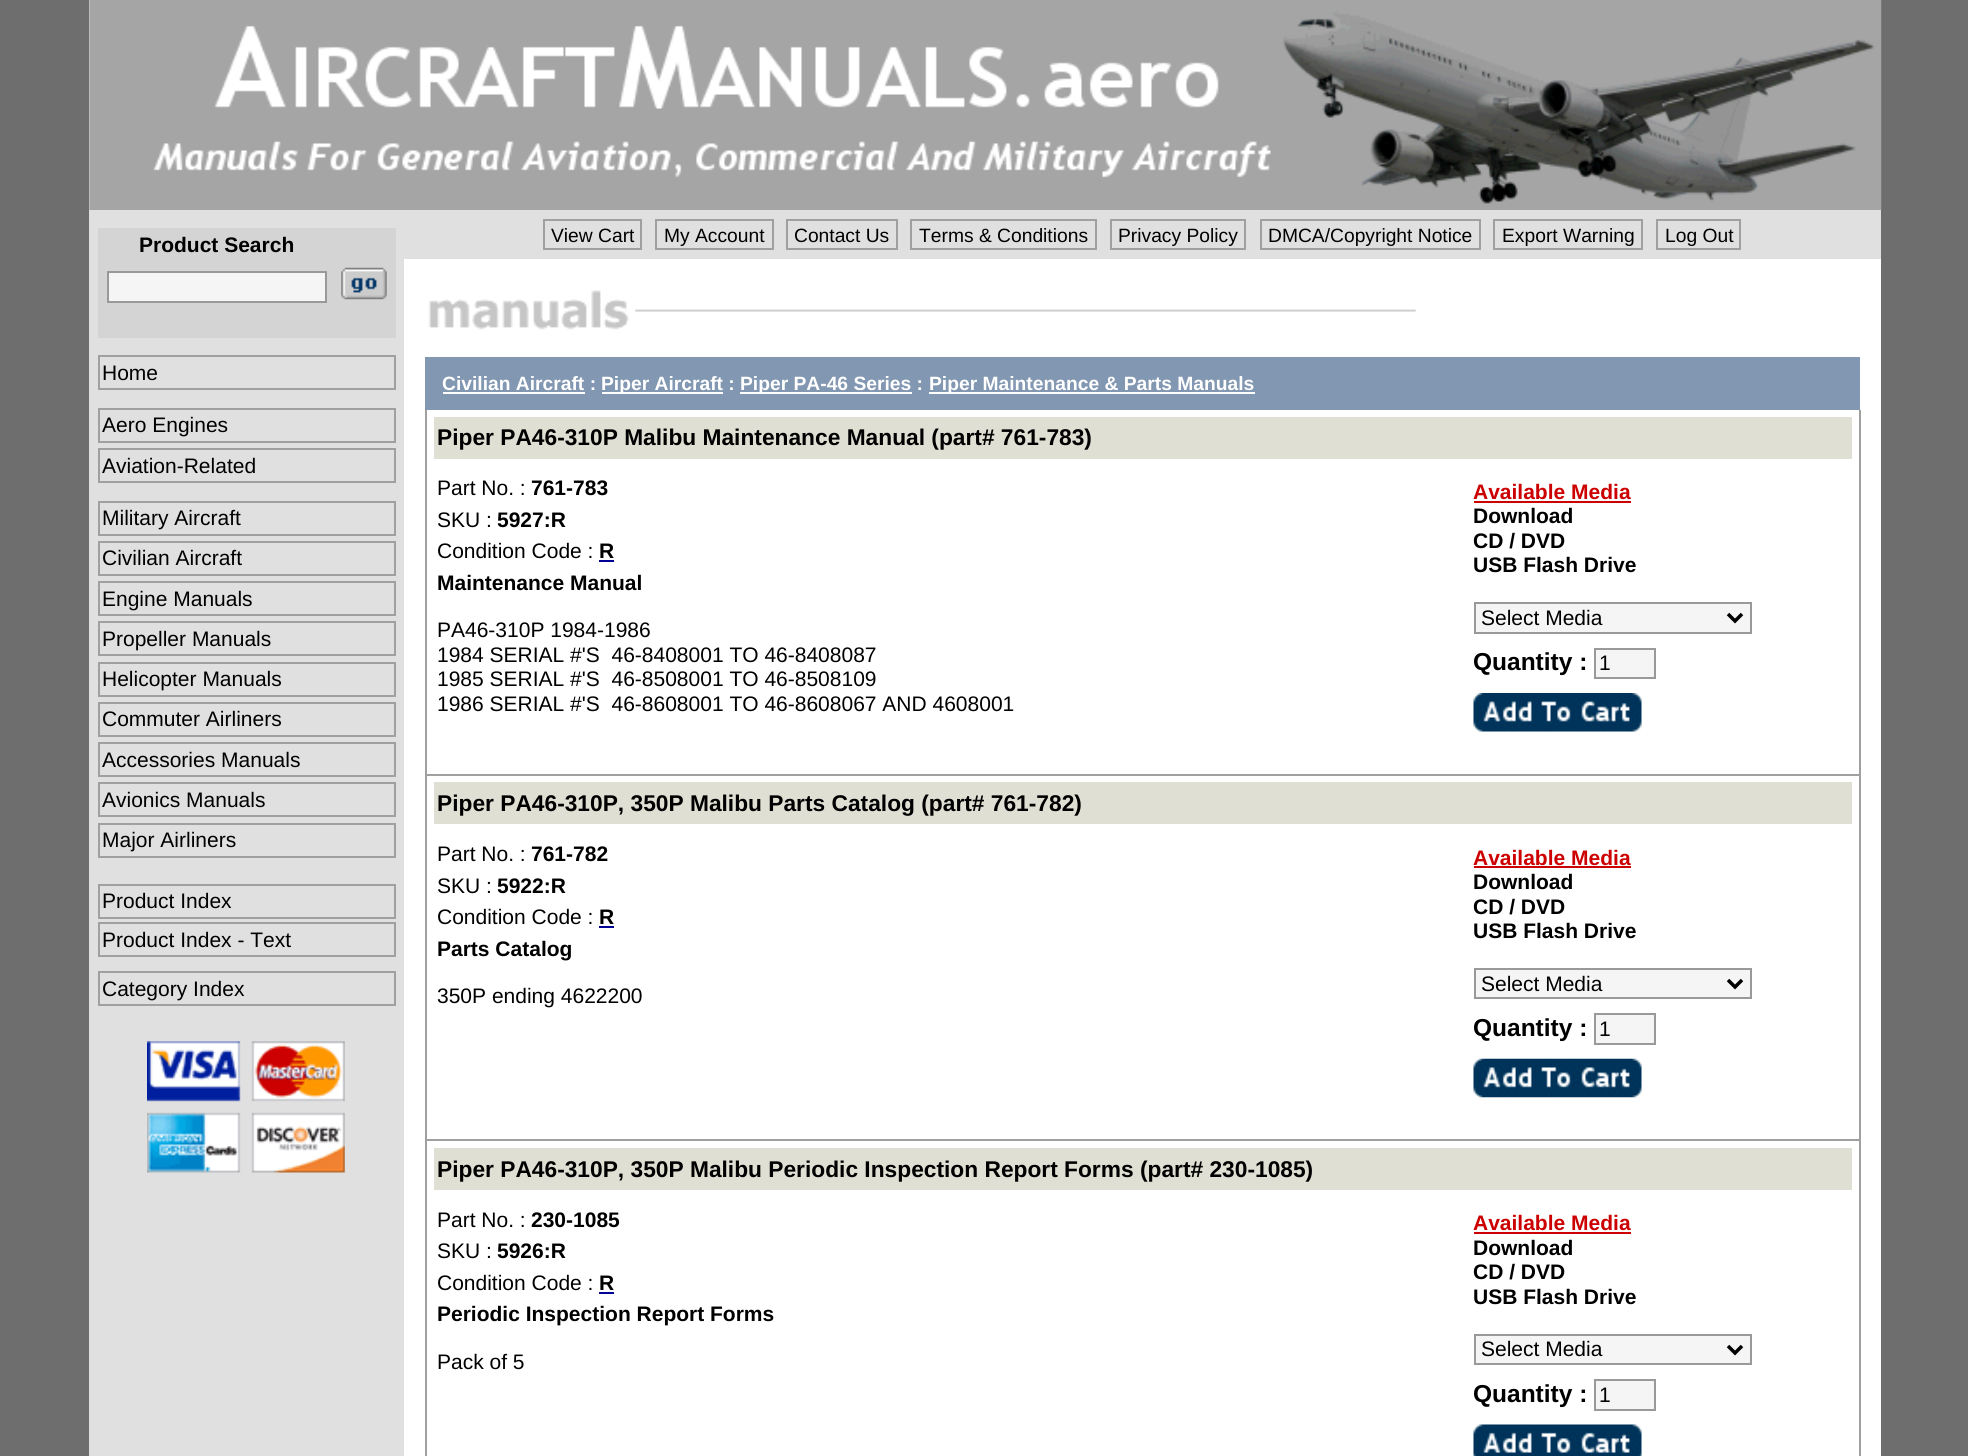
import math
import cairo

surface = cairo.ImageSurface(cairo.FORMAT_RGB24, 1968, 1456)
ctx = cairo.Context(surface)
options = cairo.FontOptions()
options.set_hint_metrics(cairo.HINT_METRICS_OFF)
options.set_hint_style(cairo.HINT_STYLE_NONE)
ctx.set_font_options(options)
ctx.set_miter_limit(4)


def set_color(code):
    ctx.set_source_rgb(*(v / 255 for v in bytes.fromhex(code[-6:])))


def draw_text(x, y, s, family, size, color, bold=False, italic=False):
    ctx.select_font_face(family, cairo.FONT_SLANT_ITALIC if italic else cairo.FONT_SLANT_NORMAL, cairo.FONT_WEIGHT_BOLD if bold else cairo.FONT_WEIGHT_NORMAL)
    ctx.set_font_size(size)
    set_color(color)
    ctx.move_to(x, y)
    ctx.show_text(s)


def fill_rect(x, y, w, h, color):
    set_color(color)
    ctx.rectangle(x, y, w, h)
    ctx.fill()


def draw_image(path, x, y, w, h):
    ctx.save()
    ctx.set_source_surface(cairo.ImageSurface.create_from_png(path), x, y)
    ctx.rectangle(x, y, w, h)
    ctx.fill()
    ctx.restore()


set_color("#6e6e6e")
ctx.paint()
fill_rect(89, 0, 1792, 1456, "#ffffff")
draw_image("assets/img1.png", 89, 0, 1793, 210)
fill_rect(89, 210, 315, 1246, "#e0e0e0")
fill_rect(98, 228, 298, 110, "#d4d4d4")
draw_text(139, 252, "Product Search", "Liberation Sans", 21, "#000000", bold=True)
set_color("#f5f5f5")
ctx.rectangle(108, 272, 218, 30)
ctx.fill_preserve()
set_color("#999999")
ctx.stroke()
draw_image("assets/img2.png", 341, 267, 46, 33)
ctx.rectangle(99, 356, 296, 33)
set_color("#a0a0a0")
ctx.stroke()
draw_text(102, 380, "Home", "Liberation Sans", 21, "#000000")
ctx.rectangle(99, 409, 296, 33)
set_color("#a0a0a0")
ctx.stroke()
draw_text(102, 432, "Aero Engines", "Liberation Sans", 21, "#000000")
ctx.rectangle(99, 449, 296, 33)
set_color("#a0a0a0")
ctx.stroke()
draw_text(102, 473, "Aviation-Related", "Liberation Sans", 21, "#000000")
ctx.rectangle(99, 502, 296, 33)
set_color("#a0a0a0")
ctx.stroke()
draw_text(102, 525, "Military Aircraft", "Liberation Sans", 21, "#000000")
ctx.rectangle(99, 542, 296, 33)
set_color("#a0a0a0")
ctx.stroke()
draw_text(102, 565, "Civilian Aircraft", "Liberation Sans", 21, "#000000")
ctx.rectangle(99, 582, 296, 33)
set_color("#a0a0a0")
ctx.stroke()
draw_text(102, 606, "Engine Manuals", "Liberation Sans", 21, "#000000")
ctx.rectangle(99, 622, 296, 33)
set_color("#a0a0a0")
ctx.stroke()
draw_text(102, 646, "Propeller Manuals", "Liberation Sans", 21, "#000000")
ctx.rectangle(99, 663, 296, 33)
set_color("#a0a0a0")
ctx.stroke()
draw_text(102, 686, "Helicopter Manuals", "Liberation Sans", 21, "#000000")
ctx.rectangle(99, 703, 296, 33)
set_color("#a0a0a0")
ctx.stroke()
draw_text(102, 726, "Commuter Airliners", "Liberation Sans", 21, "#000000")
ctx.rectangle(99, 743, 296, 33)
set_color("#a0a0a0")
ctx.stroke()
draw_text(102, 767, "Accessories Manuals", "Liberation Sans", 21, "#000000")
ctx.rectangle(99, 783, 296, 33)
set_color("#a0a0a0")
ctx.stroke()
draw_text(102, 807, "Avionics Manuals", "Liberation Sans", 21, "#000000")
ctx.rectangle(99, 824, 296, 33)
set_color("#a0a0a0")
ctx.stroke()
draw_text(102, 847, "Major Airliners", "Liberation Sans", 21, "#000000")
ctx.rectangle(99, 885, 296, 33)
set_color("#a0a0a0")
ctx.stroke()
draw_text(102, 908, "Product Index", "Liberation Sans", 21, "#000000")
ctx.rectangle(99, 923, 296, 33)
set_color("#a0a0a0")
ctx.stroke()
draw_text(102, 947, "Product Index - Text", "Liberation Sans", 21, "#000000")
ctx.rectangle(99, 972, 296, 33)
set_color("#a0a0a0")
ctx.stroke()
draw_text(102, 996, "Category Index", "Liberation Sans", 21, "#000000")
draw_image("assets/img3.png", 147, 1041, 198, 132)
fill_rect(404, 210, 1477, 49, "#e0e0e0")
ctx.rectangle(544, 220, 97, 29)
set_color("#a0a0a0")
ctx.stroke()
draw_text(551, 242, "View Cart", "Liberation Sans", 19.25, "#000000")
ctx.rectangle(656, 220, 117, 29)
set_color("#a0a0a0")
ctx.stroke()
draw_text(664, 242, "My Account", "Liberation Sans", 19.25, "#000000")
ctx.rectangle(787, 220, 110, 29)
set_color("#a0a0a0")
ctx.stroke()
draw_text(794, 242, "Contact Us", "Liberation Sans", 19.25, "#000000")
ctx.rectangle(911, 220, 185, 29)
set_color("#a0a0a0")
ctx.stroke()
draw_text(919, 242, "Terms & Conditions", "Liberation Sans", 19.25, "#000000")
ctx.rectangle(1111, 220, 134, 29)
set_color("#a0a0a0")
ctx.stroke()
draw_text(1118, 242, "Privacy Policy", "Liberation Sans", 19.25, "#000000")
ctx.rectangle(1261, 220, 219, 29)
set_color("#a0a0a0")
ctx.stroke()
draw_text(1268, 242, "DMCA/Copyright Notice", "Liberation Sans", 19.25, "#000000")
ctx.rectangle(1494, 220, 148, 29)
set_color("#a0a0a0")
ctx.stroke()
draw_text(1502, 242, "Export Warning", "Liberation Sans", 19.25, "#000000")
ctx.rectangle(1657, 220, 83, 29)
set_color("#a0a0a0")
ctx.stroke()
draw_text(1665, 242, "Log Out", "Liberation Sans", 19.25, "#000000")
draw_image("assets/img4.png", 428, 290, 989, 40)
fill_rect(425, 357, 1435, 53, "#8297b1")
draw_text(442, 390, "Civilian Aircraft :", "Liberation Sans", 19.25, "#ffffff", bold=True)
fill_rect(443, 392, 142, 2, "#ffffff")
fill_rect(602, 392, 121, 2, "#ffffff")
draw_text(601, 390, "Piper Aircraft :", "Liberation Sans", 19.25, "#ffffff", bold=True)
fill_rect(740, 392, 172, 2, "#ffffff")
draw_text(740, 390, "Piper PA-46 Series :", "Liberation Sans", 19.25, "#ffffff", bold=True)
fill_rect(929, 392, 326, 2, "#ffffff")
draw_text(929, 390, "Piper Maintenance & Parts Manuals", "Liberation Sans", 19.25, "#ffffff", bold=True)
fill_rect(425, 410, 2, 1046, "#a0a0a0")
fill_rect(434, 417, 1418, 42, "#dfdfd3")
draw_text(437, 445, "Piper PA46-310P Malibu Maintenance Manual (part# 761-783)", "Liberation Sans", 22.75, "#000000", bold=True)
draw_text(437, 495, "Part No. :", "Liberation Sans", 21, "#000000")
draw_text(531, 495, "761-783", "Liberation Sans", 21, "#000000", bold=True)
draw_text(437, 527, "SKU :", "Liberation Sans", 21, "#000000")
draw_text(497, 527, "5927:R", "Liberation Sans", 21, "#000000", bold=True)
draw_text(437, 558, "Condition Code :", "Liberation Sans", 21, "#000000")
draw_text(599, 558, "R", "Liberation Sans", 21, "#000000", bold=True)
fill_rect(599, 560, 15, 2, "#000099")
draw_text(437, 590, "Maintenance Manual", "Liberation Sans", 21, "#000000", bold=True)
draw_text(437, 637, "PA46-310P 1984-1986", "Liberation Sans", 21, "#000000")
draw_text(437, 662, "1984 SERIAL #'S  46-8408001 TO 46-8408087", "Liberation Sans", 21, "#000000")
draw_text(437, 686, "1985 SERIAL #'S  46-8508001 TO 46-8508109", "Liberation Sans", 21, "#000000")
draw_text(437, 711, "1986 SERIAL #'S  46-8608001 TO 46-8608067 AND 4608001", "Liberation Sans", 21, "#000000")
draw_text(1473, 499, "Available Media", "Liberation Sans", 21, "#cc0000", bold=True)
fill_rect(1474, 501, 157, 2, "#cc0000")
draw_text(1473, 523, "Download", "Liberation Sans", 21, "#000000", bold=True)
draw_text(1473, 548, "CD / DVD", "Liberation Sans", 21, "#000000", bold=True)
draw_text(1473, 572, "USB Flash Drive", "Liberation Sans", 21, "#000000", bold=True)
set_color("#f5f5f5")
ctx.rectangle(1475, 603, 276, 30)
ctx.fill_preserve()
set_color("#999999")
ctx.stroke()
ctx.new_path()
ctx.move_to(1728, 614)
ctx.line_to(1735, 621)
ctx.line_to(1742, 614)
set_color("#000000")
ctx.set_line_width(3.5)
ctx.stroke()
draw_text(1481, 625, "Select Media", "Liberation Sans", 21, "#000000")
draw_text(1473, 670, "Quantity :", "Liberation Sans", 24.5, "#000000", bold=True)
set_color("#f5f5f5")
ctx.rectangle(1595, 649, 60, 29)
ctx.fill_preserve()
set_color("#999999")
ctx.set_line_width(2)
ctx.stroke()
draw_text(1599, 670, "1", "Liberation Sans", 21, "#000000")
draw_image("assets/img5.png", 1473, 693, 169, 39)
fill_rect(427, 774, 1432, 2, "#a0a0a0")
fill_rect(434, 782, 1418, 42, "#dfdfd3")
draw_text(437, 811, "Piper PA46-310P, 350P Malibu Parts Catalog (part# 761-782)", "Liberation Sans", 22.75, "#000000", bold=True)
draw_text(437, 861, "Part No. :", "Liberation Sans", 21, "#000000")
draw_text(531, 861, "761-782", "Liberation Sans", 21, "#000000", bold=True)
draw_text(437, 893, "SKU :", "Liberation Sans", 21, "#000000")
draw_text(497, 893, "5922:R", "Liberation Sans", 21, "#000000", bold=True)
draw_text(437, 924, "Condition Code :", "Liberation Sans", 21, "#000000")
draw_text(599, 924, "R", "Liberation Sans", 21, "#000000", bold=True)
fill_rect(599, 926, 15, 2, "#000099")
draw_text(437, 956, "Parts Catalog", "Liberation Sans", 21, "#000000", bold=True)
draw_text(437, 1003, "350P ending 4622200", "Liberation Sans", 21, "#000000")
draw_text(1473, 865, "Available Media", "Liberation Sans", 21, "#cc0000", bold=True)
fill_rect(1474, 866, 157, 2, "#cc0000")
draw_text(1473, 889, "Download", "Liberation Sans", 21, "#000000", bold=True)
draw_text(1473, 914, "CD / DVD", "Liberation Sans", 21, "#000000", bold=True)
draw_text(1473, 938, "USB Flash Drive", "Liberation Sans", 21, "#000000", bold=True)
set_color("#f5f5f5")
ctx.rectangle(1475, 969, 276, 29)
ctx.fill_preserve()
set_color("#999999")
ctx.stroke()
ctx.new_path()
ctx.move_to(1728, 980)
ctx.line_to(1735, 987)
ctx.line_to(1742, 980)
set_color("#000000")
ctx.set_line_width(3.5)
ctx.stroke()
draw_text(1481, 991, "Select Media", "Liberation Sans", 21, "#000000")
draw_text(1473, 1036, "Quantity :", "Liberation Sans", 24.5, "#000000", bold=True)
set_color("#f5f5f5")
ctx.rectangle(1595, 1014, 60, 30)
ctx.fill_preserve()
set_color("#999999")
ctx.set_line_width(2)
ctx.stroke()
draw_text(1599, 1036, "1", "Liberation Sans", 21, "#000000")
draw_image("assets/img6.png", 1473, 1058, 169, 40)
fill_rect(427, 1139, 1432, 2, "#a0a0a0")
fill_rect(434, 1148, 1418, 42, "#dfdfd3")
draw_text(437, 1177, "Piper PA46-310P, 350P Malibu Periodic Inspection Report Forms (part# 230-1085)", "Liberation Sans", 22.75, "#000000", bold=True)
draw_text(437, 1227, "Part No. :", "Liberation Sans", 21, "#000000")
draw_text(531, 1227, "230-1085", "Liberation Sans", 21, "#000000", bold=True)
draw_text(437, 1258, "SKU :", "Liberation Sans", 21, "#000000")
draw_text(497, 1258, "5926:R", "Liberation Sans", 21, "#000000", bold=True)
draw_text(437, 1290, "Condition Code :", "Liberation Sans", 21, "#000000")
draw_text(599, 1290, "R", "Liberation Sans", 21, "#000000", bold=True)
fill_rect(599, 1292, 15, 2, "#000099")
draw_text(437, 1321, "Periodic Inspection Report Forms", "Liberation Sans", 21, "#000000", bold=True)
draw_text(437, 1369, "Pack of 5", "Liberation Sans", 21, "#000000")
draw_text(1473, 1230, "Available Media", "Liberation Sans", 21, "#cc0000", bold=True)
fill_rect(1474, 1232, 157, 2, "#cc0000")
draw_text(1473, 1255, "Download", "Liberation Sans", 21, "#000000", bold=True)
draw_text(1473, 1279, "CD / DVD", "Liberation Sans", 21, "#000000", bold=True)
draw_text(1473, 1304, "USB Flash Drive", "Liberation Sans", 21, "#000000", bold=True)
set_color("#f5f5f5")
ctx.rectangle(1475, 1335, 276, 29)
ctx.fill_preserve()
set_color("#999999")
ctx.stroke()
ctx.new_path()
ctx.move_to(1728, 1346)
ctx.line_to(1735, 1353)
ctx.line_to(1742, 1346)
set_color("#000000")
ctx.set_line_width(3.5)
ctx.stroke()
draw_text(1481, 1356, "Select Media", "Liberation Sans", 21, "#000000")
draw_text(1473, 1402, "Quantity :", "Liberation Sans", 24.5, "#000000", bold=True)
set_color("#f5f5f5")
ctx.rectangle(1595, 1380, 60, 30)
ctx.fill_preserve()
set_color("#999999")
ctx.set_line_width(2)
ctx.stroke()
draw_text(1599, 1402, "1", "Liberation Sans", 21, "#000000")
draw_image("assets/img7.png", 1473, 1424, 169, 32)
fill_rect(1859, 410, 2, 1046, "#a0a0a0")
surface.write_to_png("output.png")
